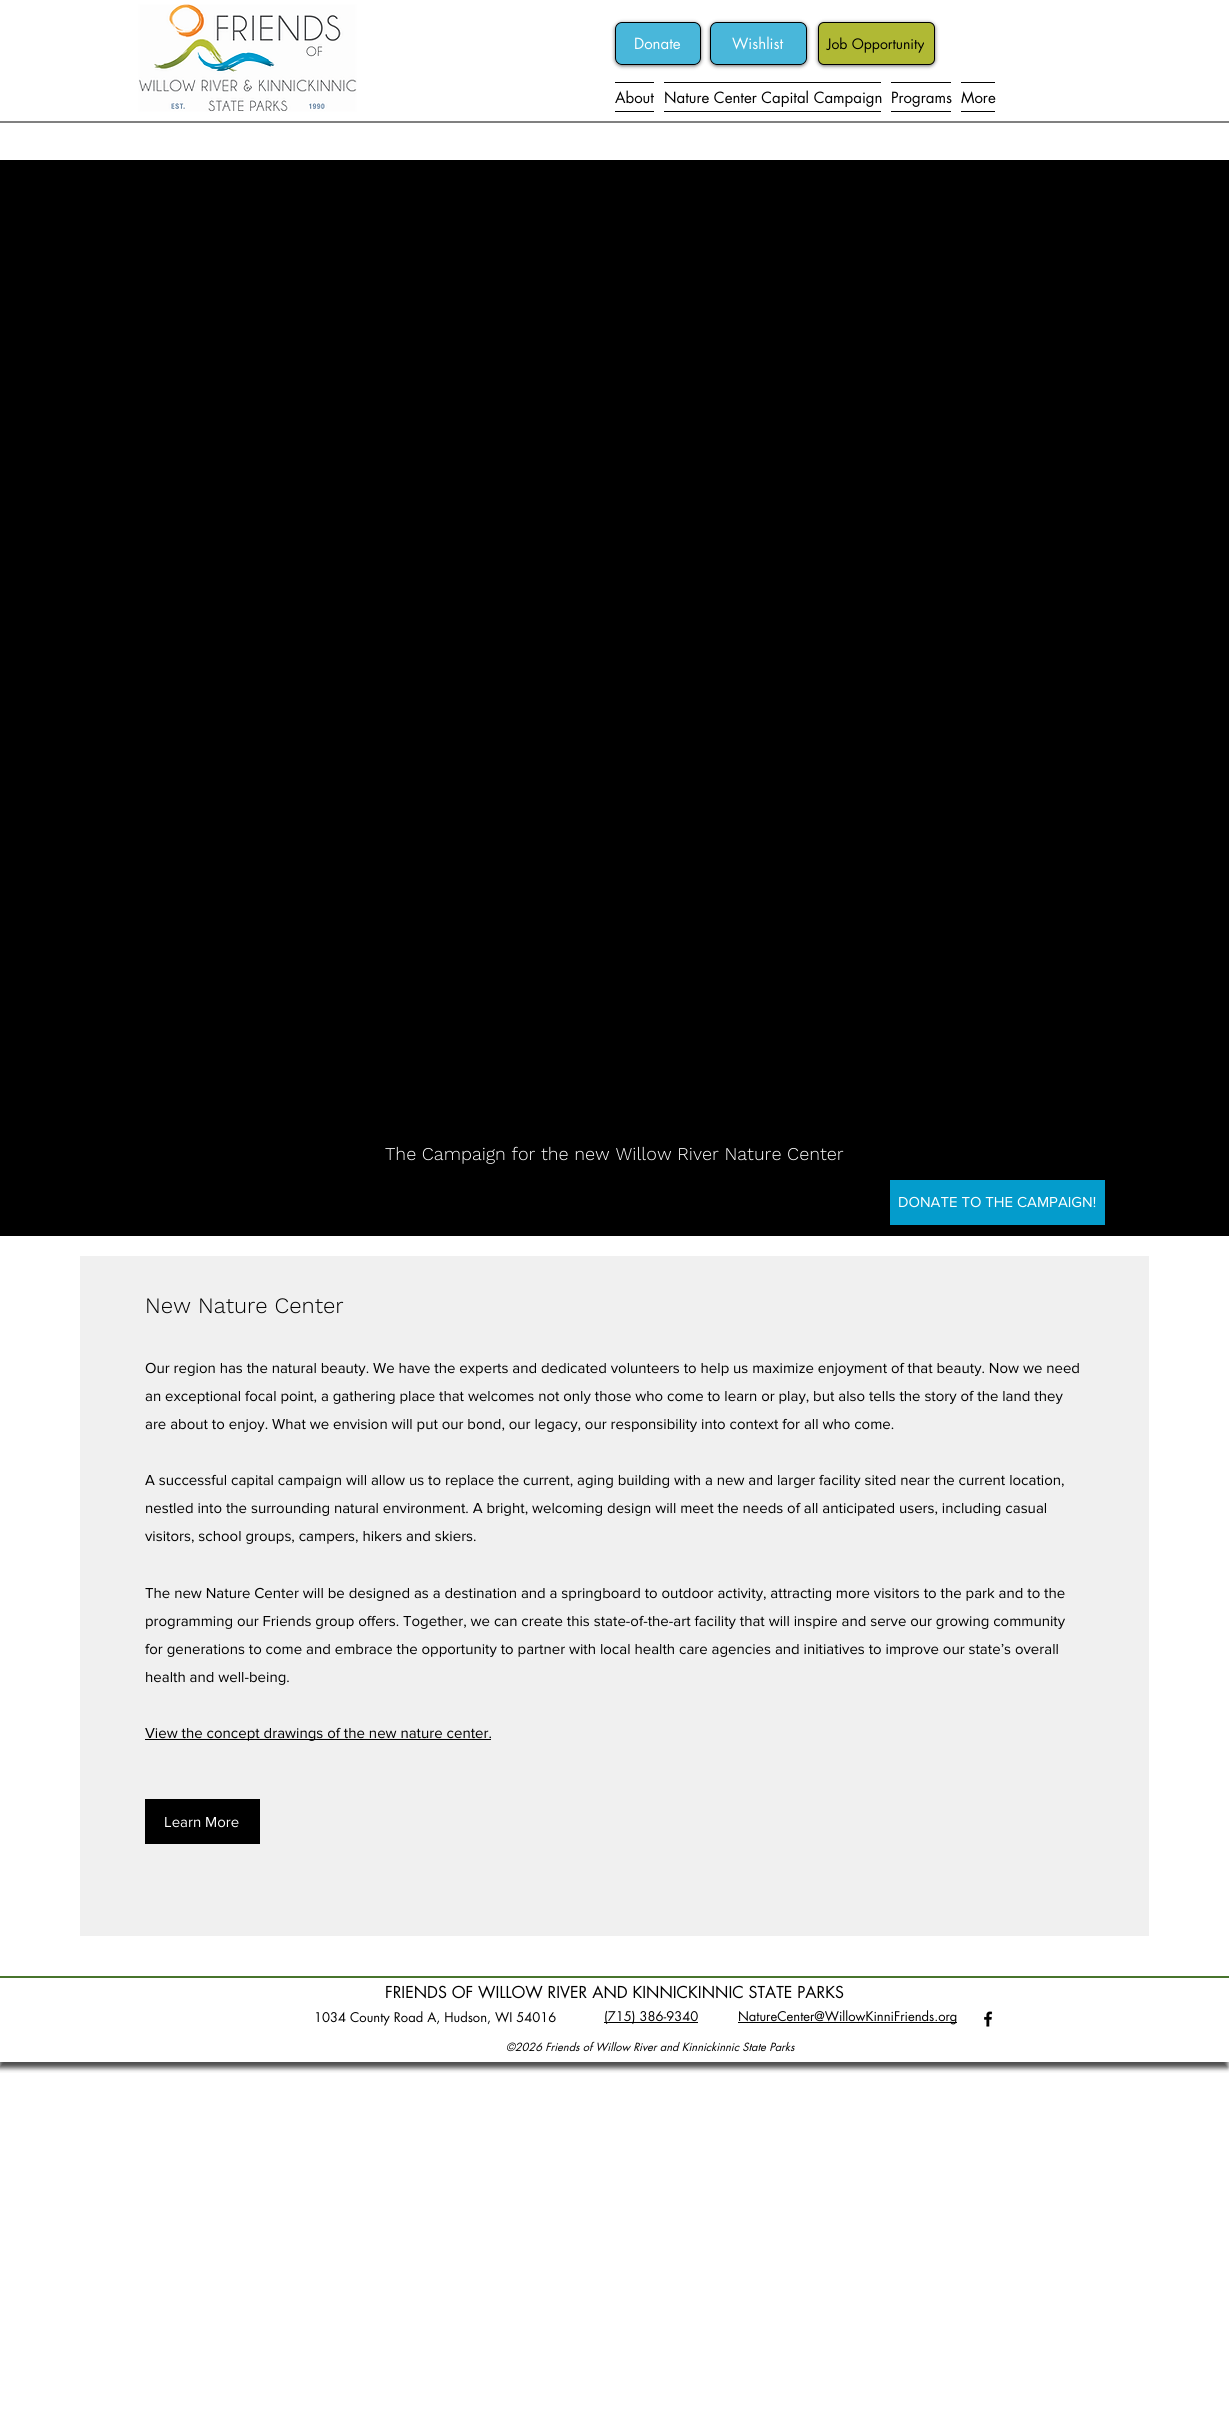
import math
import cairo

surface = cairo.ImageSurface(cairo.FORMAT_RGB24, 1229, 2416)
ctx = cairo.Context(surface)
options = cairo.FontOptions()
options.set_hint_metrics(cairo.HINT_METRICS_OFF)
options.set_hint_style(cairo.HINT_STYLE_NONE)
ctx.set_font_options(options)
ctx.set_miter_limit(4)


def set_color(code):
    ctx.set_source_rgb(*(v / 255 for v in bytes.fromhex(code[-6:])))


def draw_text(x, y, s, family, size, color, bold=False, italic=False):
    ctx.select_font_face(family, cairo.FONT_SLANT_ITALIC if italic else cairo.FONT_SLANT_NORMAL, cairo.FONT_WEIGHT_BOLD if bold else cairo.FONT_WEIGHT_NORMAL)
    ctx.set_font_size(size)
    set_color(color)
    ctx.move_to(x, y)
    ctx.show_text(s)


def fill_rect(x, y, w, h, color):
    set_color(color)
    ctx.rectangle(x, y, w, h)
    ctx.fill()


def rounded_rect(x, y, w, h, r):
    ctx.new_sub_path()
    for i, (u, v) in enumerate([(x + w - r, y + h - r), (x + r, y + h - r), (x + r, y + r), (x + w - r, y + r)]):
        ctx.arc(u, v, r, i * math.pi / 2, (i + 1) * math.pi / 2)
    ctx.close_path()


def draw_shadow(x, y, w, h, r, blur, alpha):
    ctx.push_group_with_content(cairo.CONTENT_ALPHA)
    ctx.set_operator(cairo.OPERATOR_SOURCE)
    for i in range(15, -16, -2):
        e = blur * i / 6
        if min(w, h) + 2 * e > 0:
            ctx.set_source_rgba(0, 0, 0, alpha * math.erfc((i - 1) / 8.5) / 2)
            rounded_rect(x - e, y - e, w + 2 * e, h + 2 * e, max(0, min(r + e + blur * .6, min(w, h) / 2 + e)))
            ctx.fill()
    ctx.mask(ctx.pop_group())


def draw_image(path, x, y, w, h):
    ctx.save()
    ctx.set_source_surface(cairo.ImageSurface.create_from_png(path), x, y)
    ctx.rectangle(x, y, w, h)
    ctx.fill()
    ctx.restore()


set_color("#ffffff")
ctx.paint()
draw_image("assets/img1.png", 138, 4, 219, 108)
ctx.save()
ctx.set_fill_rule(cairo.FILL_RULE_EVEN_ODD)
ctx.new_path()
ctx.move_to(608, 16)
ctx.line_to(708, 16)
ctx.line_to(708, 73)
ctx.line_to(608, 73)
ctx.close_path()
ctx.move_to(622, 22)
ctx.line_to(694, 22)
ctx.curve_to(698, 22, 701, 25, 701, 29)
ctx.line_to(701, 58)
ctx.curve_to(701, 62, 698, 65, 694, 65)
ctx.line_to(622, 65)
ctx.curve_to(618, 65, 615, 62, 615, 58)
ctx.line_to(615, 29)
ctx.curve_to(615, 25, 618, 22, 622, 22)
ctx.close_path()
ctx.clip()
set_color("#000000")
draw_shadow(615, 23, 86, 43, 7, 2, 0.6)
ctx.restore()
ctx.set_source_rgba(0.016, 0.612, 0.8, 0.72)
rounded_rect(615.5, 22.5, 85, 42, 6.5)
ctx.fill_preserve()
set_color("#000000")
ctx.set_line_width(1)
ctx.stroke()
draw_text(634, 49, "Donate", "futura", 15, "#ffffff")
ctx.save()
ctx.set_fill_rule(cairo.FILL_RULE_EVEN_ODD)
ctx.new_path()
ctx.move_to(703, 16)
ctx.line_to(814, 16)
ctx.line_to(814, 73)
ctx.line_to(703, 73)
ctx.close_path()
ctx.move_to(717, 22)
ctx.line_to(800, 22)
ctx.curve_to(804, 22, 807, 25, 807, 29)
ctx.line_to(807, 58)
ctx.curve_to(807, 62, 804, 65, 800, 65)
ctx.line_to(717, 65)
ctx.curve_to(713, 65, 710, 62, 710, 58)
ctx.line_to(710, 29)
ctx.curve_to(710, 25, 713, 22, 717, 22)
ctx.close_path()
ctx.clip()
set_color("#000000")
draw_shadow(710, 23, 97, 43, 7, 2, 0.6)
ctx.restore()
ctx.set_source_rgba(0.016, 0.612, 0.8, 0.72)
rounded_rect(710.5, 22.5, 96, 42, 6.5)
ctx.fill_preserve()
set_color("#000000")
ctx.stroke()
draw_text(732, 49, "Wishlist", "futura", 15, "#ffffff")
set_color("#000000")
draw_shadow(818, 23, 117, 43, 6, 2, 0.6)
set_color("#b0b934")
rounded_rect(818.5, 22.5, 116, 42, 5.5)
ctx.fill_preserve()
set_color("#000000")
ctx.stroke()
draw_text(827, 49, "Job Opportunity", "futura", 14, "#000000")
fill_rect(615, 82, 39, 1, "#000000")
fill_rect(615, 111, 39, 1, "#000000")
draw_text(615, 103, "About", "futura", 15, "#000000")
fill_rect(664, 82, 217, 1, "#000000")
fill_rect(664, 111, 217, 1, "#000000")
draw_text(664, 103, "Nature Center Capital Campaign", "futura", 15, "#000000")
fill_rect(891, 82, 60, 1, "#000000")
fill_rect(891, 111, 60, 1, "#000000")
draw_text(891, 103, "Programs", "futura", 15, "#000000")
fill_rect(961, 82, 34, 1, "#000000")
fill_rect(961, 111, 34, 1, "#000000")
draw_text(961, 103, "More", "futura", 15, "#000000")
fill_rect(0, 121, 1229, 2, "#808080")
fill_rect(0, 160, 1229, 1076, "#000000")
draw_text(385, 1160, "The Campaign for the new Willow River Nature Center", "Work Sans Light", 18, "#ffffff")
fill_rect(890, 1180, 215, 45, "#049ccc")
draw_text(898, 1207, "DONATE TO THE CAMPAIGN!", "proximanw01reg", 15, "#ffffff")
fill_rect(80, 1256, 1069, 680, "#f0f0f0")
draw_text(145, 1313, "New Nature Center", "Work Sans Light", 22, "#000000")
draw_text(145, 1373, "Our region has the natural beauty. We have the experts and dedicated volunteers to help us maximize enjoyment of that beauty. Now we need", "proximanw01reg", 15, "#000000")
draw_text(145, 1401, "an exceptional focal point, a gathering place that welcomes not only those who come to learn or play, but also tells the story of the land they", "proximanw01reg", 15, "#000000")
draw_text(145, 1429, "are about to enjoy. What we envision will put our bond, our legacy, our responsibility into context for all who come.", "proximanw01reg", 15, "#000000")
draw_text(145, 1485, "A successful capital campaign will allow us to replace the current, aging building with a new and larger facility sited near the current location,", "proximanw01reg", 15, "#000000")
draw_text(145, 1513, "nestled into the surrounding natural environment. A bright, welcoming design will meet the needs of all anticipated users, including casual", "proximanw01reg", 15, "#000000")
draw_text(145, 1541, "visitors, school groups, campers, hikers and skiers.", "proximanw01reg", 15, "#000000")
draw_text(145, 1598, "The new Nature Center will be designed as a destination and a springboard to outdoor activity, attracting more visitors to the park and to the", "proximanw01reg", 15, "#000000")
draw_text(145, 1626, "programming our Friends group offers. Together, we can create this state-of-the-art facility that will inspire and serve our growing community", "proximanw01reg", 15, "#000000")
draw_text(145, 1654, "for generations to come and embrace the opportunity to partner with local health care agencies and initiatives to improve our state’s overall", "proximanw01reg", 15, "#000000")
draw_text(145, 1682, "health and well-being.", "proximanw01reg", 15, "#000000")
fill_rect(145, 1739, 346, 1, "#000000")
draw_text(145, 1738, "View the concept drawings of the new nature center.", "proximanw01reg", 15, "#000000")
fill_rect(145, 1799, 115, 45, "#000000")
draw_text(164, 1827, "Learn More", "proximanw01reg", 15, "#ffffff")
ctx.save()
ctx.rectangle(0, 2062, 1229, 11)
ctx.clip()
set_color("#000000")
draw_shadow(-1, 1982, 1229, 86, 0, 2.5, 0.7)
ctx.restore()
fill_rect(0, 1976, 1229, 2, "#47742c")
draw_text(385, 1998, "FRIENDS OF WILLOW RIVER AND KINNICKINNIC STATE PARKS", "futura", 16, "#000000")
draw_text(314, 2022, "1034 County Road A, Hudson, WI 54016", "futura", 13, "#000000")
fill_rect(604, 2022, 94, 1, "#000000")
draw_text(604, 2021, "(715) 386-9340", "futura", 13, "#000000")
fill_rect(738, 2022, 219, 1, "#000000")
draw_text(738, 2021, "NatureCenter@WillowKinniFriends.org", "futura", 13, "#000000")
draw_image("assets/img2.png", 984, 2011, 9, 16)
draw_text(506, 2051, "©2026 Friends of Willow River and Kinnickinnic State Parks", "futura", 11, "#000000", italic=True)
surface.write_to_png("output.png")
